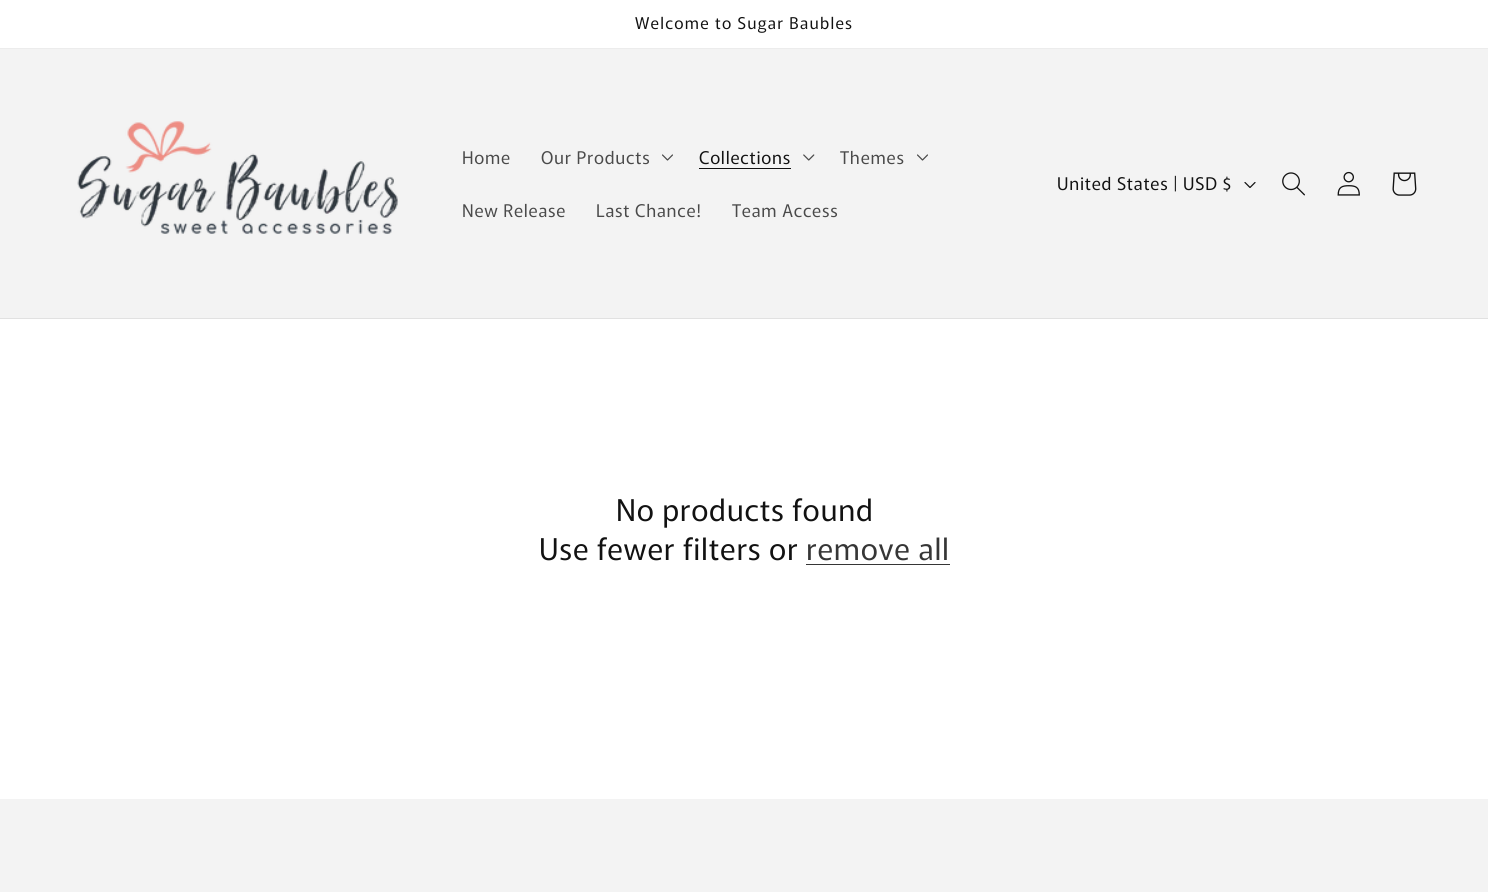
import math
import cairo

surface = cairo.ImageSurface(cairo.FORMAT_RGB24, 1488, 892)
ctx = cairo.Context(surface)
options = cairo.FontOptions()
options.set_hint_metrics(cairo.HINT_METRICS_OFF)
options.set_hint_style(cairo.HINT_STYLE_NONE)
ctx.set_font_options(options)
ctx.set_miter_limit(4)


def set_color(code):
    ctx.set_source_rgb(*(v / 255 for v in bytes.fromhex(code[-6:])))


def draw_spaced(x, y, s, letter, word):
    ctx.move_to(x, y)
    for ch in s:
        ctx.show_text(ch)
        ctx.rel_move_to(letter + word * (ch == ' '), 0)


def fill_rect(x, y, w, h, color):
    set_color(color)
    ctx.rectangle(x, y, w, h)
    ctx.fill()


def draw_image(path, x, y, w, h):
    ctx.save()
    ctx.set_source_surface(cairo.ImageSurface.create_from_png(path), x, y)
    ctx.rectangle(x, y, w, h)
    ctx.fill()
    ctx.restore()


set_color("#ffffff")
ctx.paint()
fill_rect(0, 48, 1488, 1, "#ececec")
ctx.select_font_face("Murecho")
ctx.set_font_size(16.25)
set_color("#121212")
draw_spaced(635, 29, "Welcome to Sugar Baubles", 1.25, 0)
fill_rect(0, 49, 1488, 269, "#f3f3f3")
fill_rect(0, 318, 1488, 1, "#e1e1e1")
draw_image("assets/img1.png", 77, 121, 322, 113)
ctx.set_font_size(17.5)
set_color("#4a4a4a")
draw_spaced(462, 164, "Home", 0.75, 0)
draw_spaced(541, 164, "Our Products", 0.75, 0)
draw_image("assets/img2.png", 662, 154, 11, 7)
set_color("#121212")
draw_spaced(699, 164, "Collections", 0.75, 0)
fill_rect(699, 168, 92, 1, "#121212")
draw_image("assets/img3.png", 803, 154, 12, 7)
set_color("#4a4a4a")
draw_spaced(840, 164, "Themes", 0.75, 0)
draw_image("assets/img2.png", 917, 154, 11, 7)
draw_spaced(462, 217, "New Release", 0.75, 0)
draw_spaced(596, 217, "Last Chance!", 0.75, 0)
draw_spaced(732, 217, "Team Access", 0.75, 0)
set_color("#121212")
draw_spaced(1057, 190, "United States | USD $", 0.75, 0)
draw_image("assets/img4.png", 1244, 182, 12, 6)
draw_image("assets/img5.png", 1282, 172, 23, 24)
draw_image("assets/img6.png", 1337, 171, 23, 25)
draw_image("assets/img7.png", 1392, 172, 25, 24)
ctx.set_font_size(30)
draw_spaced(616, 521, "No products found", 0.75, 0)
draw_spaced(539, 560, "Use fewer filters or", 0.75, 0)
set_color("#363636")
draw_spaced(806, 560, "remove all", 0.75, 0)
fill_rect(806, 564, 144, 1, "#363636")
fill_rect(0, 799, 1488, 93, "#f3f3f3")
surface.write_to_png("output.png")
